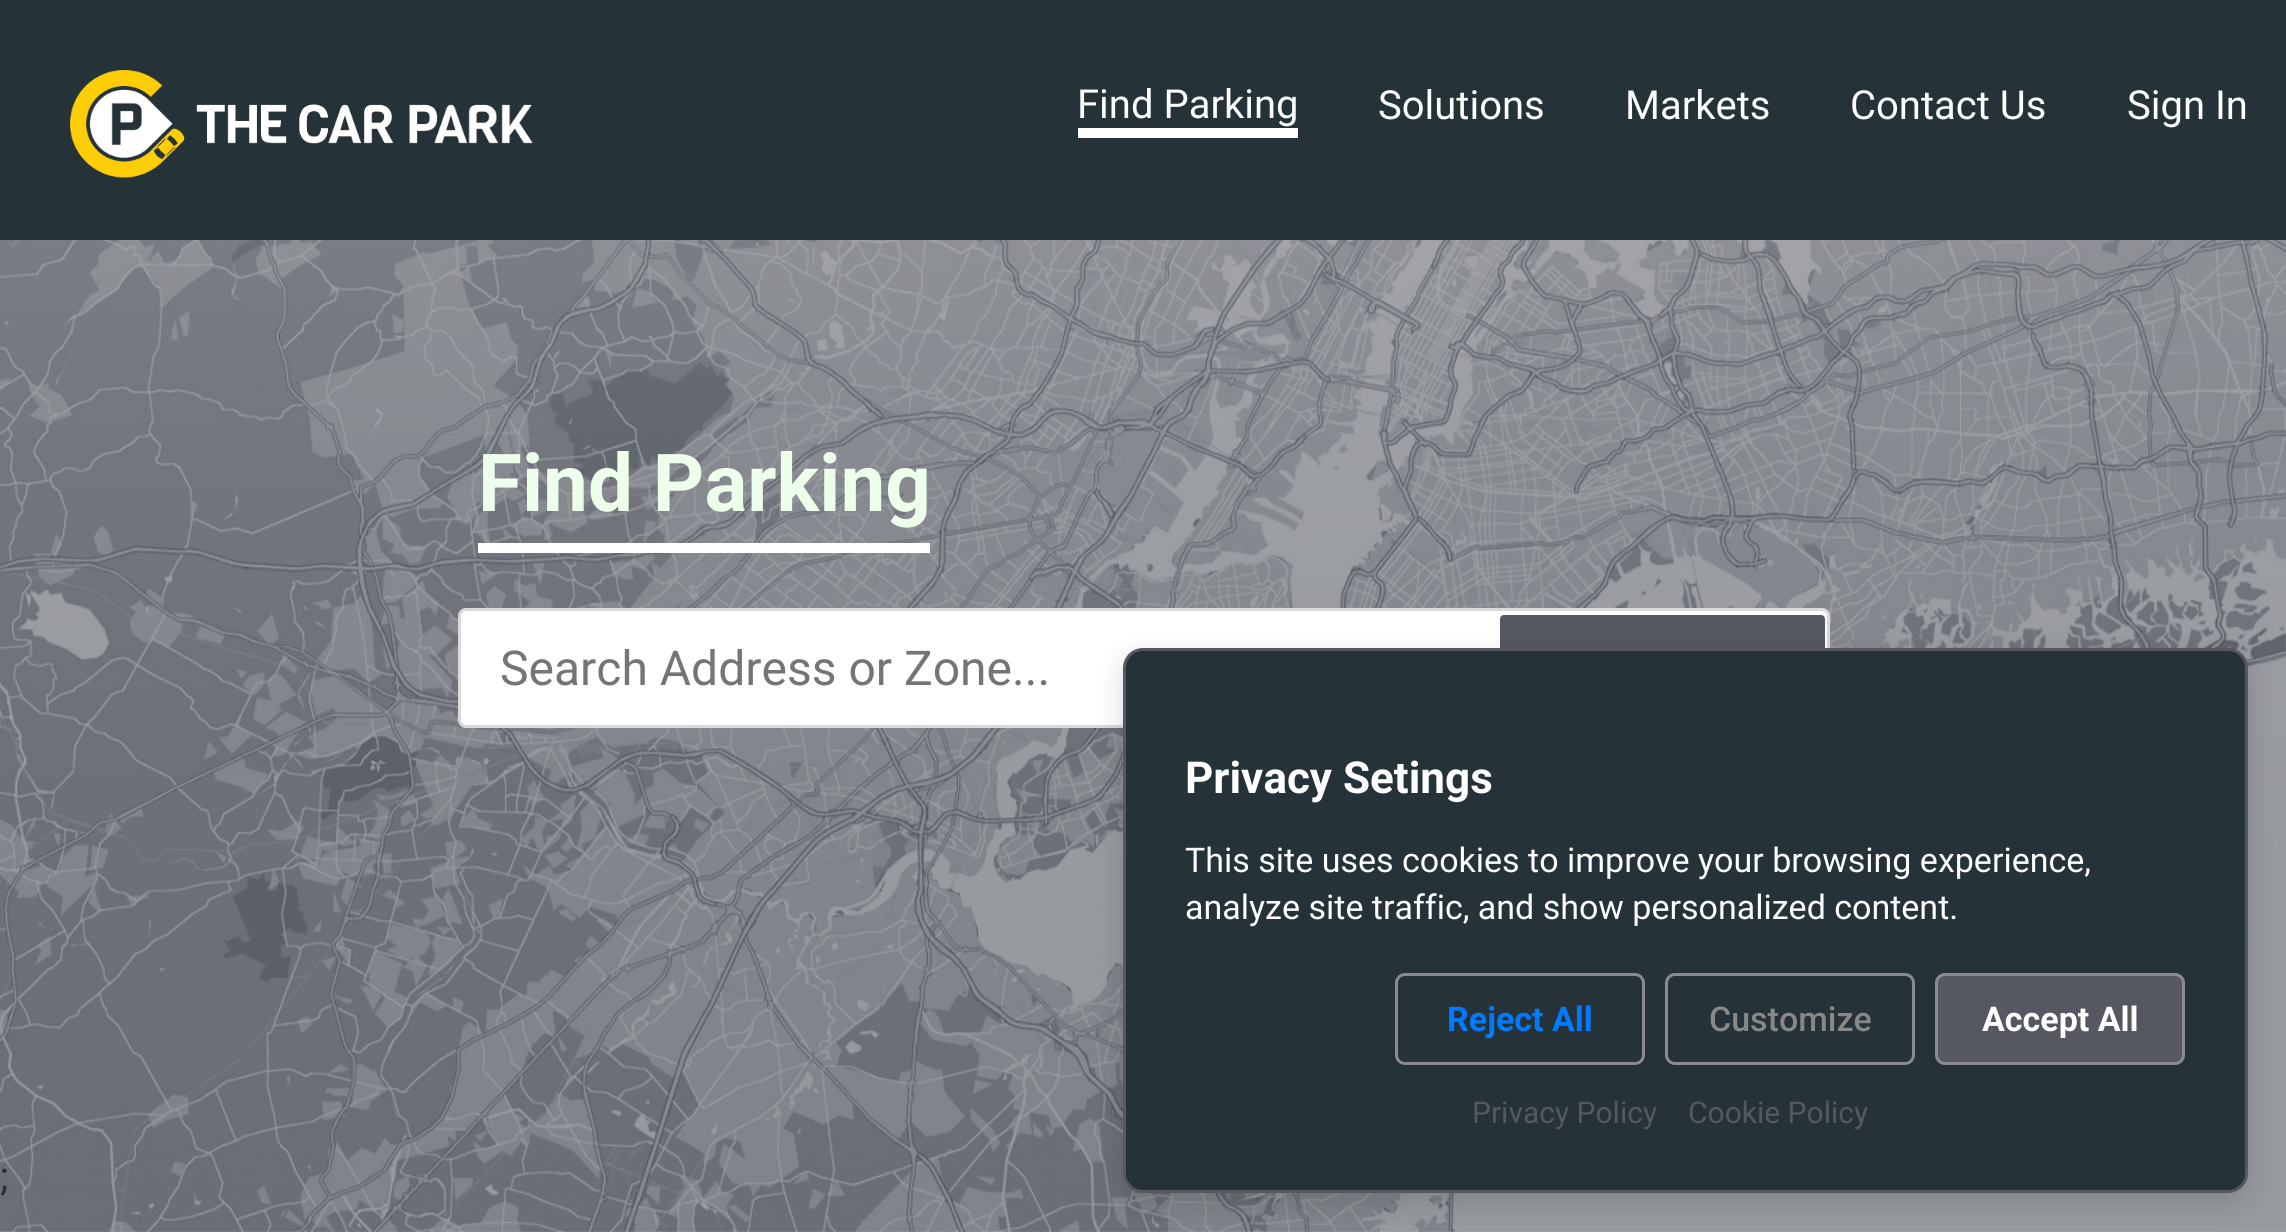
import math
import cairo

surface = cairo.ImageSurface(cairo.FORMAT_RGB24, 2286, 1232)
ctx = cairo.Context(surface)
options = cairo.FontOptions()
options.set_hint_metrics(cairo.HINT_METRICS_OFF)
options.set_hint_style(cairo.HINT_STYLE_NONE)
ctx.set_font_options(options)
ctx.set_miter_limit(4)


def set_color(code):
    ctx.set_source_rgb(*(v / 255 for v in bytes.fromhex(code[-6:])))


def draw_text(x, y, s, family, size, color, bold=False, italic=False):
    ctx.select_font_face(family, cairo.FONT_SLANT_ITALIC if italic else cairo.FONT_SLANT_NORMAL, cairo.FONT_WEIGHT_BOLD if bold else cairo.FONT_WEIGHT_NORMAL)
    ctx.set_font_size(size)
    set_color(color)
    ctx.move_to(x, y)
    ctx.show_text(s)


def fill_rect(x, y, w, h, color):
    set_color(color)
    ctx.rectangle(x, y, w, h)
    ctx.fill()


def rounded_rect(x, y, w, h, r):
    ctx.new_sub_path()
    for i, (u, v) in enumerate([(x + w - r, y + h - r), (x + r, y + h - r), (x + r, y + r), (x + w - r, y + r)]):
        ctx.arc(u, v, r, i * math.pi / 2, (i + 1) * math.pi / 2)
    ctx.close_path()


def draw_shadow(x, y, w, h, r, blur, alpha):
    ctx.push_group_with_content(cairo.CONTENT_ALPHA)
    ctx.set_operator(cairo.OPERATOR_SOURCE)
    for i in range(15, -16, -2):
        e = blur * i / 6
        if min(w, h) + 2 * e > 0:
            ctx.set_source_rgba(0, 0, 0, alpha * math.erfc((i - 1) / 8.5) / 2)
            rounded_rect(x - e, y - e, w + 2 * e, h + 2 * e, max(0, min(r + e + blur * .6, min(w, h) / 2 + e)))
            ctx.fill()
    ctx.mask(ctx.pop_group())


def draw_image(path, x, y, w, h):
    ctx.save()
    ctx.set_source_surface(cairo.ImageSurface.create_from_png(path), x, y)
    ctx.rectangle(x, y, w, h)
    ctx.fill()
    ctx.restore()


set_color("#ffffff")
ctx.paint()
fill_rect(0, 0, 2286, 240, "#253237")
draw_image("assets/img1.png", 70, 70, 463, 108)
fill_rect(1078, 128, 220, 10, "#ffffff")
draw_text(1077, 118, "Find Parking", "Roboto", 40, "#ffffff")
draw_text(1378, 119, "Solutions", "Roboto", 40, "#ffffff")
draw_text(1625, 119, "Markets", "Roboto", 40, "#ffffff")
draw_text(1850, 119, "Contact Us", "Roboto", 40, "#ffffff")
draw_text(2127, 119, "Sign In", "Roboto", 40, "#ffffff")
draw_image("assets/img2.png", 0, 240, 2286, 992)
fill_rect(478, 543, 452, 10, "#ffffff")
draw_text(478, 511, "Find Parking", "Roboto", 80, "#edfeeb", bold=True)
set_color("#ffffff")
rounded_rect(458, 608, 1372, 120, 8)
ctx.fill()
rounded_rect(459.5, 609.5, 1369, 117, 6.5)
ctx.set_source_rgba(0, 0, 0, 0.15)
ctx.set_line_width(3)
ctx.stroke()
draw_text(500, 685, "Search Address or Zone...", "Roboto", 48, "#757575")
set_color("#555860")
rounded_rect(1500, 615, 325, 105, 4)
ctx.fill()
draw_text(0, 1190, ";", "Roboto", 40, "#253237")
set_color("#000000")
draw_shadow(1123, 658, 1125, 545, 20, 15, 0.15)
set_color("#253237")
rounded_rect(1124.5, 649.5, 1122, 542, 18.5)
ctx.fill_preserve()
set_color("#555860")
ctx.stroke()
draw_text(1185, 793, "Privacy Setings", "Roboto", 44, "#ffffff", bold=True)
draw_text(1185, 872, "This site uses cookies to improve your browsing experience,", "Roboto", 34, "#ffffff")
draw_text(1185, 919, "analyze site traffic, and show personalized content.", "Roboto", 34, "#ffffff")
rounded_rect(1396.5, 974.5, 247, 89, 8.5)
set_color("#8c8a91")
ctx.stroke()
draw_text(1447, 1031, "Reject All", "Roboto", 34, "#007bff", bold=True)
rounded_rect(1666.5, 974.5, 247, 89, 8.5)
set_color("#8c8a91")
ctx.stroke()
draw_text(1709, 1031, "Customize", "Roboto Medium", 34, "#888888")
set_color("#555860")
rounded_rect(1936.5, 974.5, 247, 89, 8.5)
ctx.fill_preserve()
set_color("#8c8a91")
ctx.stroke()
draw_text(1982, 1031, "Accept All", "Roboto", 34, "#ffffff", bold=True)
draw_text(1472, 1123, "Privacy Policy", "Roboto", 30, "#555860")
draw_text(1688, 1123, "Cookie Policy", "Roboto", 30, "#555860")
surface.write_to_png("output.png")
